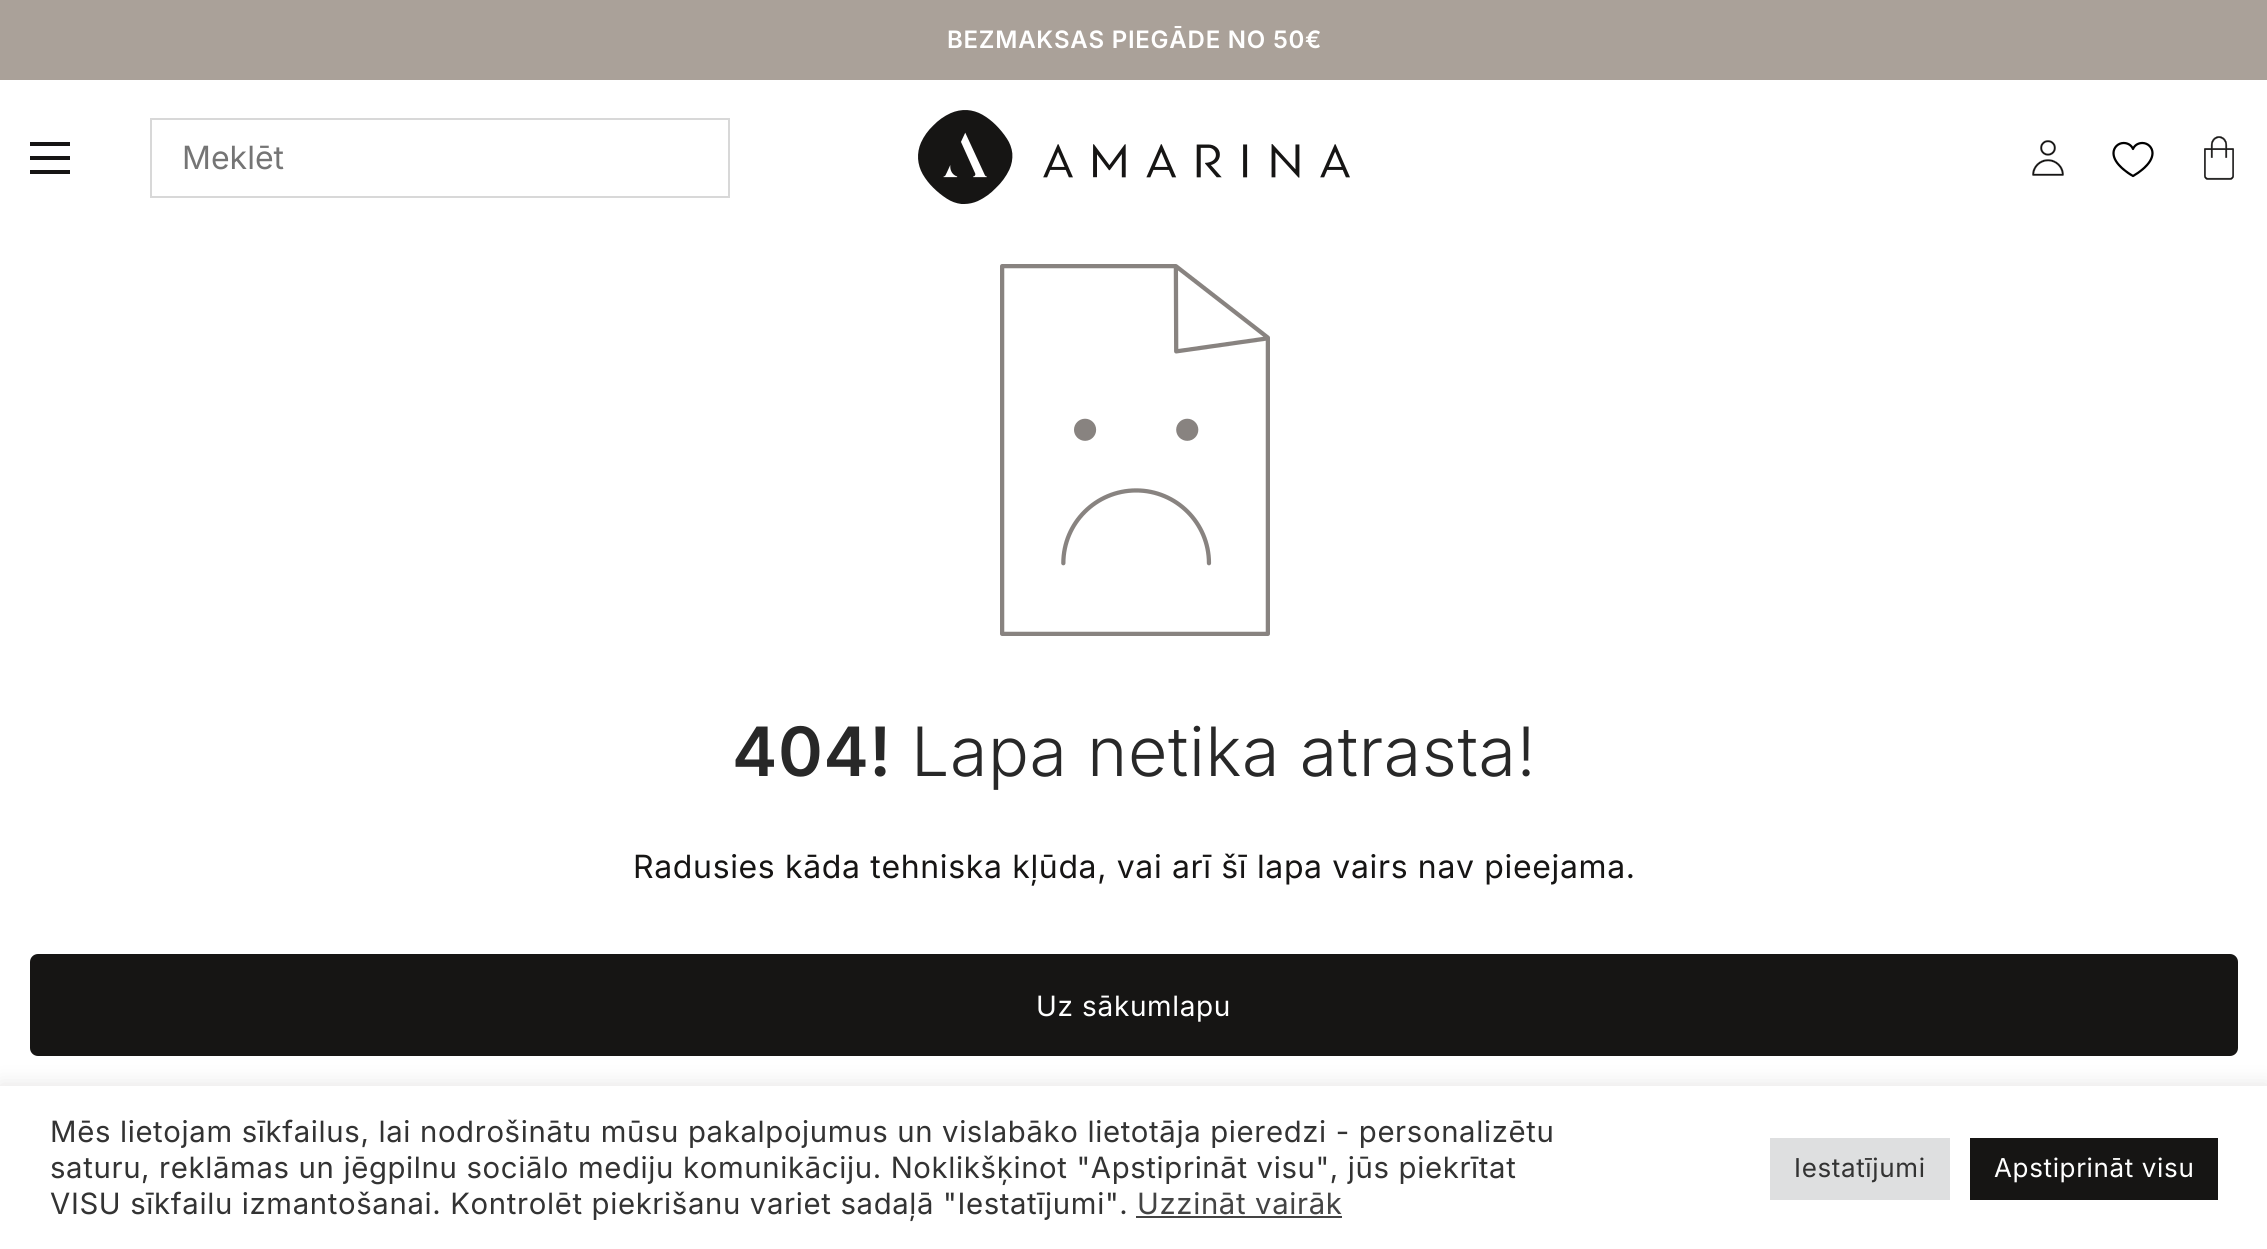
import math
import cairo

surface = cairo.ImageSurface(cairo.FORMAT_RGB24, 2267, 1249)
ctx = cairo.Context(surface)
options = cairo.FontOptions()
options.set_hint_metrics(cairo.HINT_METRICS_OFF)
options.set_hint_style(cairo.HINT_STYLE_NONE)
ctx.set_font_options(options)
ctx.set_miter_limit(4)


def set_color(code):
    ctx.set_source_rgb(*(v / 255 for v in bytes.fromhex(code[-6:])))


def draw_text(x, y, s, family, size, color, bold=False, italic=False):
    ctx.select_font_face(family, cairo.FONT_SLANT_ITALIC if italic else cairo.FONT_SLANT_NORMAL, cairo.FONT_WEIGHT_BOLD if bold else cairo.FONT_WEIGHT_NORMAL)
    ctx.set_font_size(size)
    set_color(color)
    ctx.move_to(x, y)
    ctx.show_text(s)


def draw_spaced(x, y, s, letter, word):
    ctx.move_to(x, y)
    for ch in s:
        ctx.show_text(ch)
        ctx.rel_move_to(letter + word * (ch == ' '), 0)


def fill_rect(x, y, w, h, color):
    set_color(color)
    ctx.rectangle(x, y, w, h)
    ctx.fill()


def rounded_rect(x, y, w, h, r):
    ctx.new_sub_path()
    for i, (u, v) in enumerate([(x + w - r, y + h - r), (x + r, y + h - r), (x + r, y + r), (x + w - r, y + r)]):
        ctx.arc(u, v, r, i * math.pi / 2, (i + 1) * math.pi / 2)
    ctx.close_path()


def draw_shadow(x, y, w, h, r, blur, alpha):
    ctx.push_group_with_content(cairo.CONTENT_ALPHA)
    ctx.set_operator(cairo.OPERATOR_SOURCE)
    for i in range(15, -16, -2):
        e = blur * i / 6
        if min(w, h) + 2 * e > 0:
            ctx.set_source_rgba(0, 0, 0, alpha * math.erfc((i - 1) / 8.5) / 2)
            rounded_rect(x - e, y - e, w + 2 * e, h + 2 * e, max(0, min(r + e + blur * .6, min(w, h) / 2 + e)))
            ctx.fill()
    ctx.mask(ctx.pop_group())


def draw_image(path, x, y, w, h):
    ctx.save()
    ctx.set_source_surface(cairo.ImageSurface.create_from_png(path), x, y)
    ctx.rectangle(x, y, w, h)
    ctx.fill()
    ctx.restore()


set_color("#ffffff")
ctx.paint()
fill_rect(0, 0, 2267, 80, "#aaa199")
ctx.select_font_face("Inter SemiBold")
ctx.set_font_size(24)
set_color("#ffffff")
draw_spaced(947, 48, "BEZMAKSAS PIEGĀDE NO 50€", 0.75, 0)
fill_rect(30, 156, 40, 4, "#161514")
fill_rect(30, 142, 40, 4, "#161514")
fill_rect(30, 170, 40, 4, "#161514")
ctx.rectangle(151, 119, 578, 78)
set_color("#d8d8d8")
ctx.stroke()
draw_text(182, 169, "Meklēt", "Inter", 32, "#757575")
draw_image("assets/img1.png", 918, 110, 432, 94)
draw_image("assets/img2.png", 2032, 140, 32, 36)
draw_image("assets/img3.png", 2112, 141, 42, 37)
draw_image("assets/img4.png", 2204, 136, 30, 44)
draw_image("assets/img5.png", 1000, 264, 270, 372)
ctx.select_font_face("Inter SemiBold")
ctx.set_font_size(68)
set_color("#282828")
draw_spaced(732, 776, "404!", 0.64, 0)
ctx.select_font_face("Inter Light")
draw_spaced(911, 776, "Lapa netika atrasta!", 0.64, 0)
ctx.select_font_face("Inter")
ctx.set_font_size(32)
set_color("#161514")
draw_spaced(633, 878, "Radusies kāda tehniska kļūda, vai arī šī lapa vairs nav pieejama.", 0.64, 0)
rounded_rect(30, 954, 2208, 102, 8)
ctx.fill()
ctx.set_font_size(28)
set_color("#ffffff")
draw_spaced(1036, 1016, "Uz sākumlapu", 0.64, 0)
set_color("#acabab")
draw_shadow(0, 1084, 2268, 164, 0, 10, 0.3)
fill_rect(0, 1086, 2267, 163, "#ffffff")
ctx.set_font_size(29.33)
set_color("#333333")
draw_spaced(50, 1142, "Mēs lietojam sīkfailus, lai nodrošinātu mūsu pakalpojumus un vislabāko lietotāja pieredzi - personalizētu", 0.64, 0)
draw_spaced(50, 1178, "saturu, reklāmas un jēgpilnu sociālo mediju komunikāciju. Noklikšķinot \"Apstiprināt visu\", jūs piekrītat", 0.64, 0)
draw_spaced(50, 1214, "VISU sīkfailu izmantošanai. Kontrolēt piekrišanu variet sadaļā \"Iestatījumi\".", 0.64, 0)
set_color("#444444")
draw_spaced(1137, 1214, "Uzzināt vairāk", 0.64, 0)
fill_rect(1136, 1216, 206, 2, "#444444")
fill_rect(1770, 1138, 180, 62, "#dedfe0")
ctx.set_font_size(26)
set_color("#333333")
draw_spaced(1794, 1177, "Iestatījumi", 0.64, 0)
fill_rect(1970, 1138, 248, 62, "#161514")
set_color("#ffffff")
draw_spaced(1994, 1177, "Apstiprināt visu", 0.64, 0)
surface.write_to_png("output.png")
